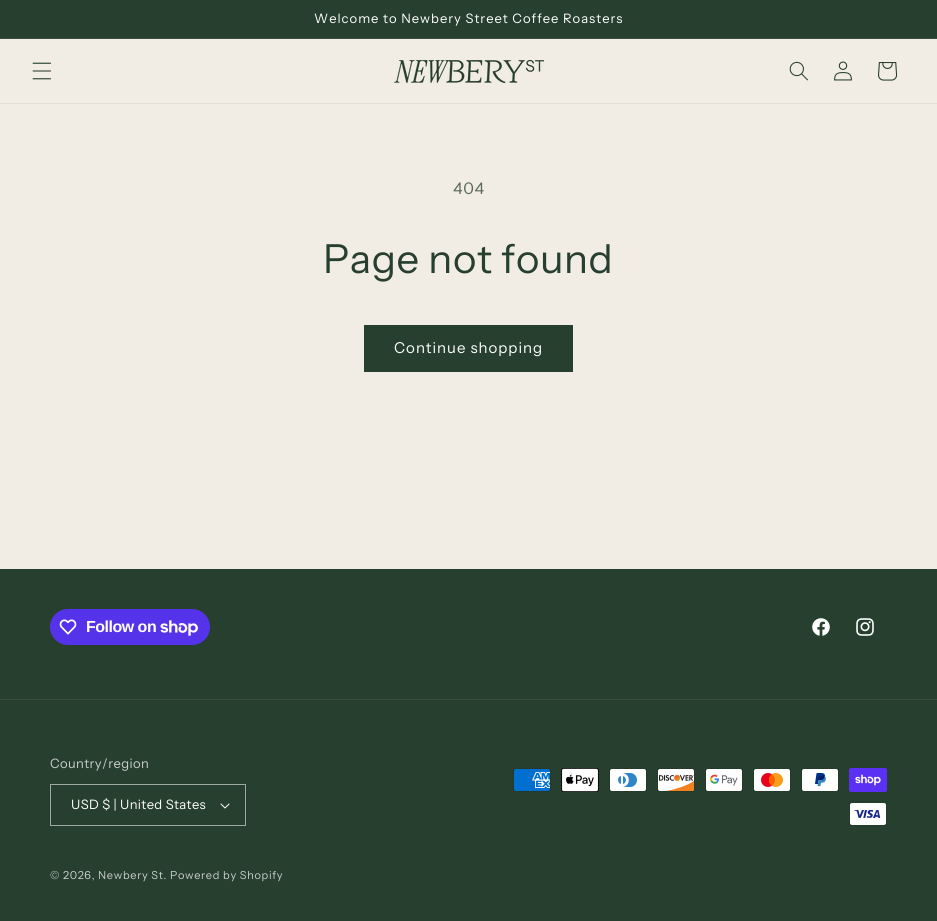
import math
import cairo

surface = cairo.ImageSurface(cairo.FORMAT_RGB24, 937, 921)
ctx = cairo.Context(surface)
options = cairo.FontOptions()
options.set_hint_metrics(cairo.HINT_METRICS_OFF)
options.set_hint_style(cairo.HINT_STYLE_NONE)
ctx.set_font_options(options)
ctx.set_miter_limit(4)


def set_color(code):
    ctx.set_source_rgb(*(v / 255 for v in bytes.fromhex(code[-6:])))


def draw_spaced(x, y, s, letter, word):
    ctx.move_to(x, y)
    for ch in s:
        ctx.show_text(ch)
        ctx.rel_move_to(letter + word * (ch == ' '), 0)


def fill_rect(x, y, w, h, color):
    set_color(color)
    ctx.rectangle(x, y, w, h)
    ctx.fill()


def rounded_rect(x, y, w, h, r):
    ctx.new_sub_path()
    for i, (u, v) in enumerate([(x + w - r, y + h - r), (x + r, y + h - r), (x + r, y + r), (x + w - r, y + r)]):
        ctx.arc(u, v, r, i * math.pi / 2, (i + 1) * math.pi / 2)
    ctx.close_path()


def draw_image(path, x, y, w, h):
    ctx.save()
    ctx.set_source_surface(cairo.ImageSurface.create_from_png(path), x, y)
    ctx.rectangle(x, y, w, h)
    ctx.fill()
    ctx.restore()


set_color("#f2ede4")
ctx.paint()
fill_rect(0, 0, 937, 38, "#273f2e")
fill_rect(0, 38, 937, 1, "#384e3f")
ctx.select_font_face("Instrument Sans")
ctx.set_font_size(13)
set_color("#ffffff")
draw_spaced(314, 23, "Welcome to Newbery Street Coffee Roasters", 1, 0)
fill_rect(0, 103, 937, 1, "#e2dfd5")
draw_image("assets/img1.png", 32, 62, 20, 18)
draw_image("assets/img2.png", 394, 60, 150, 23)
draw_image("assets/img3.png", 789, 61, 19, 20)
draw_image("assets/img4.png", 834, 61, 18, 20)
draw_image("assets/img5.png", 878, 62, 20, 19)
ctx.set_font_size(16)
set_color("#5a6b5c")
draw_spaced(453, 194, "404", 0.6, 0)
ctx.set_font_size(40)
set_color("#273f2e")
draw_spaced(323, 273, "Page not found", 0.6, 0)
fill_rect(364, 325, 209, 47, "#273f2e")
ctx.set_font_size(15)
set_color("#ffffff")
draw_spaced(394, 353, "Continue shopping", 1, 0)
fill_rect(0, 569, 937, 352, "#273f2e")
set_color("#5433eb")
rounded_rect(50, 609, 160, 36, 18)
ctx.fill()
draw_image("assets/img6.png", 59, 619, 18, 16)
ctx.select_font_face("Liberation Sans", cairo.FONT_SLANT_NORMAL, cairo.FONT_WEIGHT_BOLD)
ctx.set_font_size(16)
set_color("#ffffff")
draw_spaced(86, 632, "Follow on", -0.5, 0)
draw_image("assets/img7.png", 160, 620, 38, 16)
draw_image("assets/img8.png", 812, 618, 18, 18)
draw_image("assets/img9.png", 856, 618, 18, 18)
fill_rect(0, 699, 937, 1, "#384e3f")
ctx.select_font_face("Instrument Sans")
ctx.set_font_size(13)
set_color("#c9cfcb")
draw_spaced(50, 768, "Country/region", 0.4, 0)
draw_image("assets/img10.png", 220, 803, 10, 6)
ctx.rectangle(50.5, 784.5, 195, 41)
set_color("#9ea9a1")
ctx.set_line_width(1)
ctx.stroke()
set_color("#ffffff")
draw_spaced(71, 809, "USD $ | United States", 0.4, 0)
draw_image("assets/img11.png", 513, 768, 38, 24)
draw_image("assets/img12.png", 561, 768, 38, 24)
draw_image("assets/img13.png", 609, 768, 38, 24)
draw_image("assets/img14.png", 657, 768, 38, 24)
draw_image("assets/img15.png", 705, 768, 38, 24)
draw_image("assets/img16.png", 753, 768, 38, 24)
draw_image("assets/img17.png", 801, 768, 38, 24)
draw_image("assets/img18.png", 849, 768, 38, 24)
draw_image("assets/img19.png", 849, 802, 38, 24)
ctx.set_font_size(11)
set_color("#c9cfcb")
draw_spaced(50, 879, "© 2026, Newbery St. Powered by Shopify", 0.7, 0)
surface.write_to_png("output.png")
